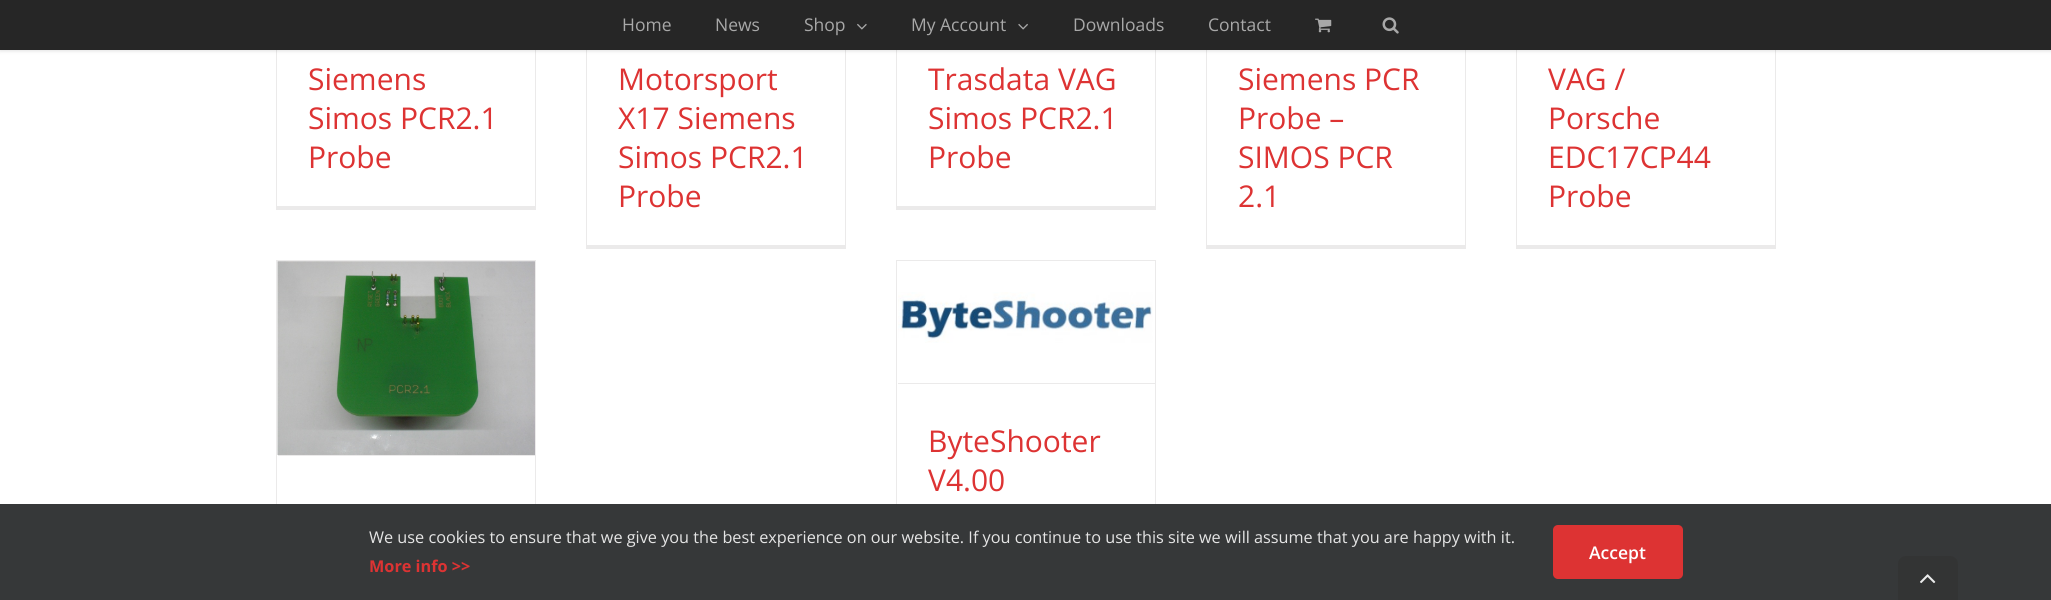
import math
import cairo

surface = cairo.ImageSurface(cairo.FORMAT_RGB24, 2051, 600)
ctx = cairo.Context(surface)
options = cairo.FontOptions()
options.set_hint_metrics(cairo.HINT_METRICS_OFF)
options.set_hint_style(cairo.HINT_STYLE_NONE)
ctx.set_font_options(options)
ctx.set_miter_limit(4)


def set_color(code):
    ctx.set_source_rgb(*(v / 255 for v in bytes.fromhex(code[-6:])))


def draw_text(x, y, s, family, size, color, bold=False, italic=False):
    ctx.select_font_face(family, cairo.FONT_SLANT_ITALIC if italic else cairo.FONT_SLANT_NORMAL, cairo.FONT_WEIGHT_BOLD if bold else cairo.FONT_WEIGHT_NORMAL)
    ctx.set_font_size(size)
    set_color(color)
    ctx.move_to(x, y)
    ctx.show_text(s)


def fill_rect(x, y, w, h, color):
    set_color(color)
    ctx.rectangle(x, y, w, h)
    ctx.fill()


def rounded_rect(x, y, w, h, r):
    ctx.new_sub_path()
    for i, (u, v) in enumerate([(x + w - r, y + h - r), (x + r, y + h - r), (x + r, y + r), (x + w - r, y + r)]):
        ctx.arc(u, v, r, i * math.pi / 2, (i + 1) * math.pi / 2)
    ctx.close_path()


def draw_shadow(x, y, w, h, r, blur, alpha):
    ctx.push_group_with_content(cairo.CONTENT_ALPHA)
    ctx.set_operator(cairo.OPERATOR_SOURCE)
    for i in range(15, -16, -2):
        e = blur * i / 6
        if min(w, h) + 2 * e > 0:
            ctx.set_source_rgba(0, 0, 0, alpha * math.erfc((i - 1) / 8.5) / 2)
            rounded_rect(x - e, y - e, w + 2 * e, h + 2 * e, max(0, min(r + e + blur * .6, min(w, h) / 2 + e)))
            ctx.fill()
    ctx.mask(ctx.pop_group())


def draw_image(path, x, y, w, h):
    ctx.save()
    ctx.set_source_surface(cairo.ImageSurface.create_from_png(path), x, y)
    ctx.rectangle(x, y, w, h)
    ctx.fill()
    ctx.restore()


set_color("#ffffff")
ctx.paint()
fill_rect(535, 50, 1, 160, "#ebeaea")
fill_rect(276, 206, 260, 4, "#ebeaea")
fill_rect(276, 50, 1, 160, "#ebeaea")
fill_rect(845, 50, 1, 199, "#ebeaea")
fill_rect(586, 245, 260, 4, "#ebeaea")
fill_rect(586, 50, 1, 199, "#ebeaea")
fill_rect(1155, 50, 1, 160, "#ebeaea")
fill_rect(896, 206, 260, 4, "#ebeaea")
fill_rect(896, 50, 1, 160, "#ebeaea")
fill_rect(1465, 50, 1, 199, "#ebeaea")
fill_rect(1206, 245, 260, 4, "#ebeaea")
fill_rect(1206, 50, 1, 199, "#ebeaea")
fill_rect(1775, 50, 1, 199, "#ebeaea")
fill_rect(1516, 245, 260, 4, "#ebeaea")
fill_rect(1516, 50, 1, 199, "#ebeaea")
set_color("#000000")
draw_shadow(0, 1, 2051, 50, 0, 2, 0.12)
fill_rect(0, 0, 2051, 50, "#262626")
draw_text(622, 31, "Home", "Open Sans", 17.5, "#a8a8a8")
draw_text(715, 31, "News", "Open Sans", 17.5, "#a8a8a8")
draw_text(804, 31, "Shop", "Open Sans", 17.5, "#a8a8a8")
draw_image("assets/img1.png", 857, 23, 10, 7)
draw_text(911, 31, "My Account", "Open Sans", 17.5, "#a8a8a8")
draw_image("assets/img2.png", 1018, 23, 10, 7)
draw_text(1073, 31, "Downloads", "Open Sans", 17.5, "#a8a8a8")
draw_text(1208, 31, "Contact", "Open Sans", 17.5, "#a8a8a8")
draw_image("assets/img3.png", 1315, 18, 17, 15)
draw_image("assets/img4.png", 1382, 17, 17, 17)
draw_text(308, 90, "Siemens", "Open Sans", 30, "#dd3333")
draw_text(308, 129, "Simos PCR2.1", "Open Sans", 30, "#dd3333")
draw_text(308, 168, "Probe", "Open Sans", 30, "#dd3333")
draw_text(618, 90, "Motorsport", "Open Sans", 30, "#dd3333")
draw_text(618, 129, "X17 Siemens", "Open Sans", 30, "#dd3333")
draw_text(618, 168, "Simos PCR2.1", "Open Sans", 30, "#dd3333")
draw_text(618, 207, "Probe", "Open Sans", 30, "#dd3333")
draw_text(928, 90, "Trasdata VAG", "Open Sans", 30, "#dd3333")
draw_text(928, 129, "Simos PCR2.1", "Open Sans", 30, "#dd3333")
draw_text(928, 168, "Probe", "Open Sans", 30, "#dd3333")
draw_text(1238, 90, "Siemens PCR", "Open Sans", 30, "#dd3333")
draw_text(1238, 129, "Probe –", "Open Sans", 30, "#dd3333")
draw_text(1238, 168, "SIMOS PCR", "Open Sans", 30, "#dd3333")
draw_text(1238, 207, "2.1", "Open Sans", 30, "#dd3333")
draw_text(1548, 90, "VAG /", "Open Sans", 30, "#dd3333")
draw_text(1548, 129, "Porsche", "Open Sans", 30, "#dd3333")
draw_text(1548, 168, "EDC17CP44", "Open Sans", 30, "#dd3333")
draw_text(1548, 207, "Probe", "Open Sans", 30, "#dd3333")
fill_rect(276, 260, 260, 1, "#ebeaea")
fill_rect(535, 260, 1, 244, "#ebeaea")
fill_rect(276, 260, 1, 244, "#ebeaea")
fill_rect(278, 455, 257, 1, "#ebeaea")
draw_image("assets/img5.png", 277, 261, 258, 194)
fill_rect(896, 260, 260, 1, "#ebeaea")
fill_rect(1155, 260, 1, 244, "#ebeaea")
fill_rect(896, 260, 1, 244, "#ebeaea")
fill_rect(898, 383, 257, 1, "#ebeaea")
draw_image("assets/img6.png", 898, 292, 255, 51)
draw_text(928, 452, "ByteShooter", "Open Sans", 30, "#dd3333")
draw_text(928, 491, "V4.00", "Open Sans", 30, "#dd3333")
fill_rect(0, 504, 2051, 96, "#363839")
draw_text(369, 543, "We use cookies to ensure that we give you the best experience on our website. If you continue to use this site we will assume that you are happy with it.", "Open Sans", 16.25, "#e5e5e5")
draw_text(369, 572, "More info >>", "Open Sans", 16.25, "#dd3333", bold=True)
rounded_rect(1553, 525, 130, 54, 5)
ctx.fill()
draw_text(1589, 559, "Accept", "Open Sans SemiBold", 17.5, "#ffffff")
set_color("#333434")
ctx.new_path()
ctx.move_to(1906, 556)
ctx.line_to(1950, 556)
ctx.curve_to(1954.5, 556, 1958, 559.5, 1958, 564)
ctx.line_to(1958, 600)
ctx.line_to(1898, 600)
ctx.line_to(1898, 564)
ctx.curve_to(1898, 559.5, 1901.5, 556, 1906, 556)
ctx.close_path()
ctx.fill()
draw_image("assets/img7.png", 1920, 574, 16, 10)
surface.write_to_png("output.png")
